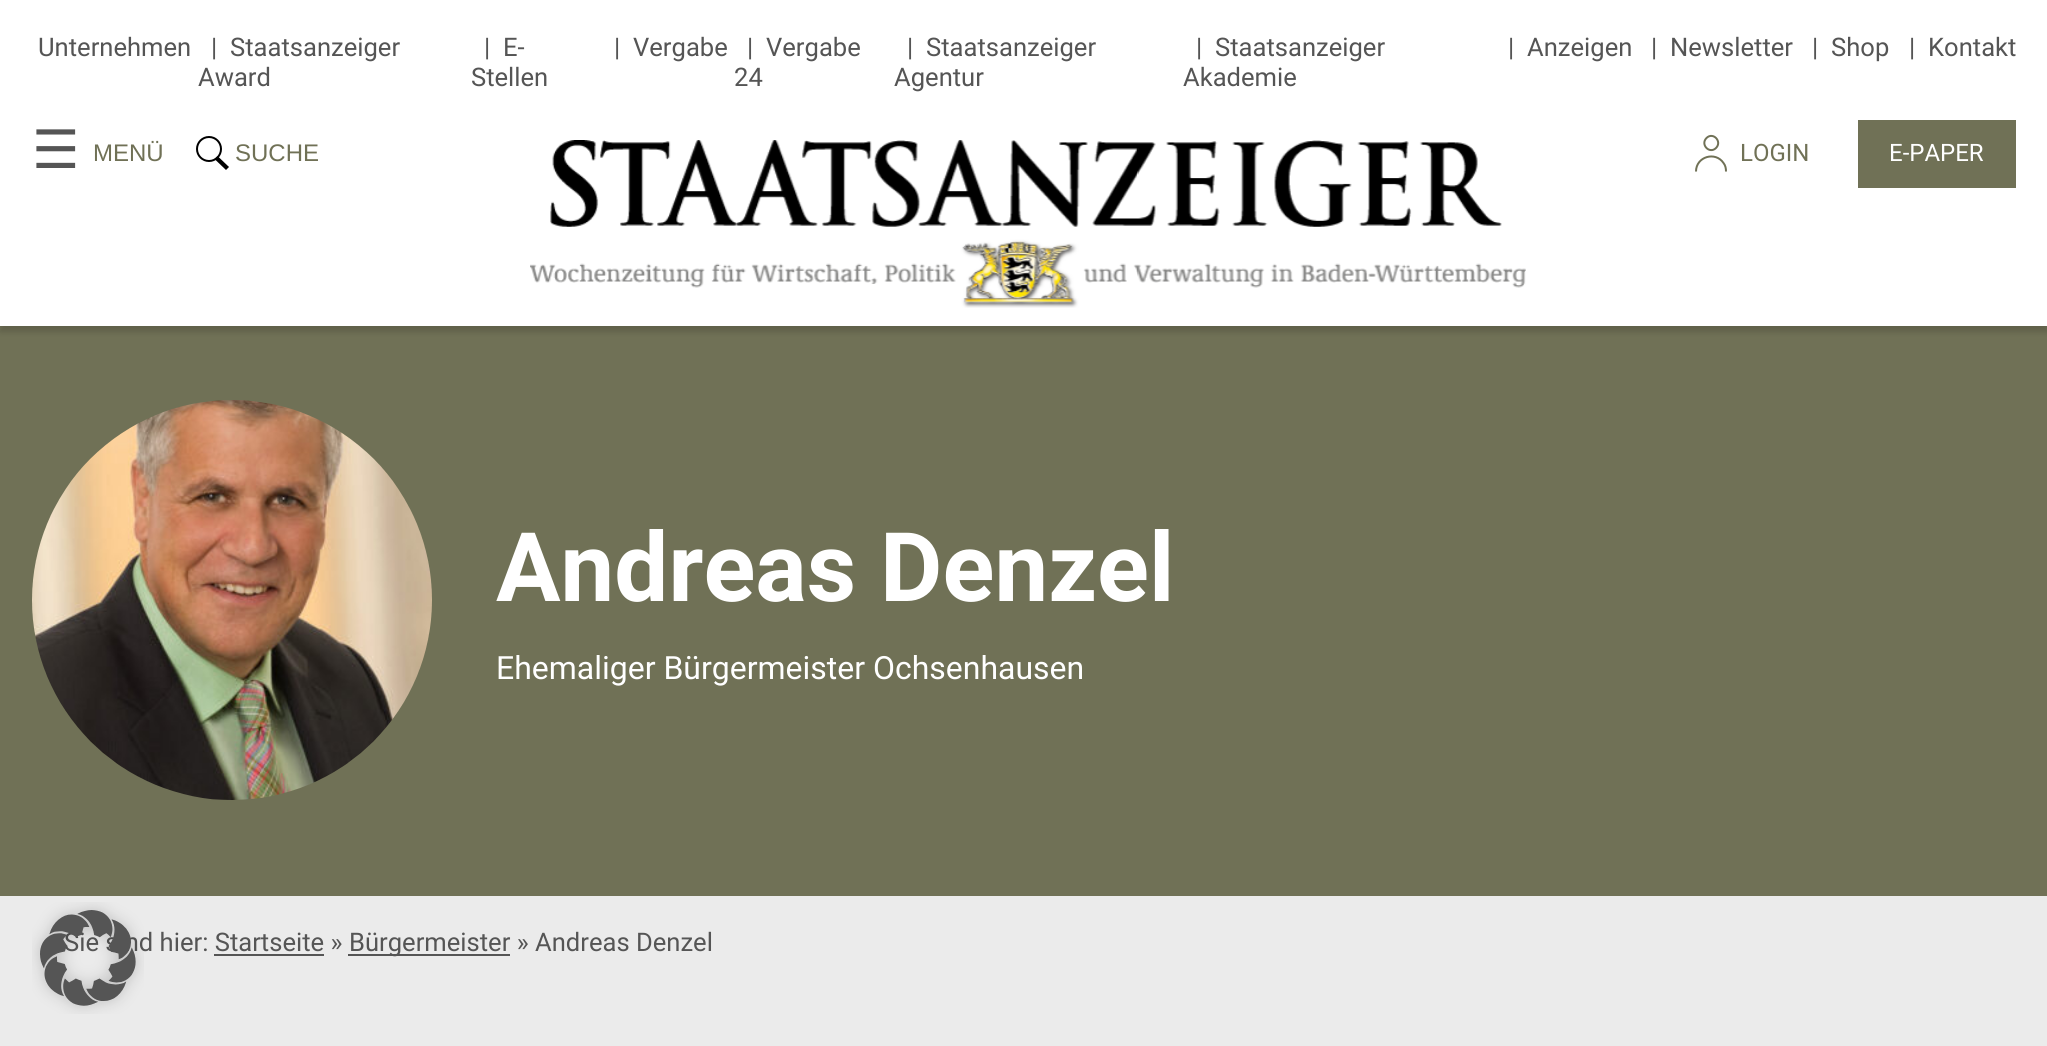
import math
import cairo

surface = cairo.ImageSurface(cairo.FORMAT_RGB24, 2047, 1046)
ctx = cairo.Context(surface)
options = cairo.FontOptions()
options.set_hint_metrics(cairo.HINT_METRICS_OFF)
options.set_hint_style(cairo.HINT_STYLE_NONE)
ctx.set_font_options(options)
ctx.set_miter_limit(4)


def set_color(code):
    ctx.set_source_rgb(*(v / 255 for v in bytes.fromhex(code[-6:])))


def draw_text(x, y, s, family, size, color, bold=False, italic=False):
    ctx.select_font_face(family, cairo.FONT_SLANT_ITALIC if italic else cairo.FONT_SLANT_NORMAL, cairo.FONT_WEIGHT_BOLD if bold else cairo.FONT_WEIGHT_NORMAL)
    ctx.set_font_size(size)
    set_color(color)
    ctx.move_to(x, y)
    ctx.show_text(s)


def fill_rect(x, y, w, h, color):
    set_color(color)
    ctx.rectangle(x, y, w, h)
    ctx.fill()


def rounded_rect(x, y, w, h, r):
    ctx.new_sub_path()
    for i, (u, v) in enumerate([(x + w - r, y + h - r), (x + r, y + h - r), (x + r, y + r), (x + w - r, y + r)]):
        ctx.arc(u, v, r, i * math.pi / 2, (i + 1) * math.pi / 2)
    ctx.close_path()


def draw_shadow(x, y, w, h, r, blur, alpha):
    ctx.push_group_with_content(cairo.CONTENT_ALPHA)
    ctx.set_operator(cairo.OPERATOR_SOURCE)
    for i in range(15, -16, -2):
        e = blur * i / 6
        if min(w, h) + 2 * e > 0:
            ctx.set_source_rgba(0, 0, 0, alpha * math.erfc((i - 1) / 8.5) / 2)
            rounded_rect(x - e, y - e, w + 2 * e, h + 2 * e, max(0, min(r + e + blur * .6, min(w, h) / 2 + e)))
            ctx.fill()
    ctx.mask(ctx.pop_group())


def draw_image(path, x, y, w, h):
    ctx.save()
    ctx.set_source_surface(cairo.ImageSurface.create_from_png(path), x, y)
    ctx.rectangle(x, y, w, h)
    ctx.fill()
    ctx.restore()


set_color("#ebebeb")
ctx.paint()
fill_rect(0, 326, 2047, 570, "#707156")
set_color("#000000")
draw_shadow(0, 6, 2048, 326, 0, 3, 0.15)
fill_rect(0, 0, 2047, 326, "#ffffff")
draw_text(38, 56, "Unternehmen", "Roboto", 25.6, "#555555")
draw_text(211, 56, "|", "Roboto", 25.6, "#555555")
draw_text(230, 56, "Staatsanzeiger", "Roboto", 25.6, "#555555")
draw_text(198, 86, "Award", "Roboto", 25.6, "#555555")
draw_text(484, 56, "|", "Roboto", 25.6, "#555555")
draw_text(503, 56, "E-", "Roboto", 25.6, "#555555")
draw_text(471, 86, "Stellen", "Roboto", 25.6, "#555555")
draw_text(614, 56, "|", "Roboto", 25.6, "#555555")
draw_text(633, 56, "Vergabe", "Roboto", 25.6, "#555555")
draw_text(747, 56, "|", "Roboto", 25.6, "#555555")
draw_text(766, 56, "Vergabe", "Roboto", 25.6, "#555555")
draw_text(734, 86, "24", "Roboto", 25.6, "#555555")
draw_text(907, 56, "|", "Roboto", 25.6, "#555555")
draw_text(926, 56, "Staatsanzeiger", "Roboto", 25.6, "#555555")
draw_text(894, 86, "Agentur", "Roboto", 25.6, "#555555")
draw_text(1196, 56, "|", "Roboto", 25.6, "#555555")
draw_text(1215, 56, "Staatsanzeiger", "Roboto", 25.6, "#555555")
draw_text(1183, 86, "Akademie", "Roboto", 25.6, "#555555")
draw_text(1508, 56, "|", "Roboto", 25.6, "#555555")
draw_text(1527, 56, "Anzeigen", "Roboto", 25.6, "#555555")
draw_text(1651, 56, "|", "Roboto", 25.6, "#555555")
draw_text(1670, 56, "Newsletter", "Roboto", 25.6, "#555555")
draw_text(1812, 56, "|", "Roboto", 25.6, "#555555")
draw_text(1831, 56, "Shop", "Roboto", 25.6, "#555555")
draw_text(1909, 56, "|", "Roboto", 25.6, "#555555")
draw_text(1928, 56, "Kontakt", "Roboto", 25.6, "#555555")
draw_text(32, 168, "☰", "DejaVu Sans", 53, "#555555")
draw_text(93, 161, "MENÜ", "Liberation Sans", 24, "#707156")
ctx.new_path()
ctx.arc(209, 149, 12, 0, 2 * math.pi)
set_color("#000000")
ctx.stroke()
ctx.new_path()
ctx.move_to(214.5, 159)
ctx.line_to(217.5, 156)
ctx.line_to(229, 167)
ctx.line_to(226, 170)
ctx.close_path()
ctx.fill()
draw_text(235, 161, "SUCHE", "Liberation Sans", 24, "#707156")
draw_image("assets/img1.png", 530, 140, 996, 168)
ctx.new_path()
ctx.move_to(1696, 171.5)
ctx.curve_to(1696, 156.5, 1715.5, 151, 1723.5, 163)
ctx.curve_to(1725.5, 165.5, 1726, 168.5, 1726, 171.5)
ctx.move_to(1706.5, 138)
ctx.curve_to(1713, 131.5, 1722.5, 141.5, 1716, 148)
ctx.curve_to(1709.5, 154.5, 1700, 144.5, 1706.5, 138)
ctx.close_path()
ctx.stroke()
draw_text(1740, 161, "LOGIN", "Roboto", 24, "#707156")
fill_rect(1858, 120, 158, 68, "#707156")
draw_text(1889, 161, "E-PAPER", "Roboto", 24, "#ffffff")
draw_image("assets/img2.png", 32, 400, 400, 400)
draw_text(496, 601, "Andreas Denzel", "Roboto", 96, "#ffffff", bold=True)
draw_text(496, 679, "Ehemaliger Bürgermeister Ochsenhausen", "Roboto", 32, "#ffffff")
draw_text(64, 951, "Sie sind hier: Startseite »", "Roboto", 25.6, "#555555")
draw_image("assets/img3.png", 32, 902, 112, 112)
fill_rect(348, 954, 162, 2, "#555555")
draw_text(349, 951, "Bürgermeister » Andreas Denzel", "Roboto", 25.6, "#555555")
fill_rect(214, 954, 110, 2, "#555555")
surface.write_to_png("output.png")
